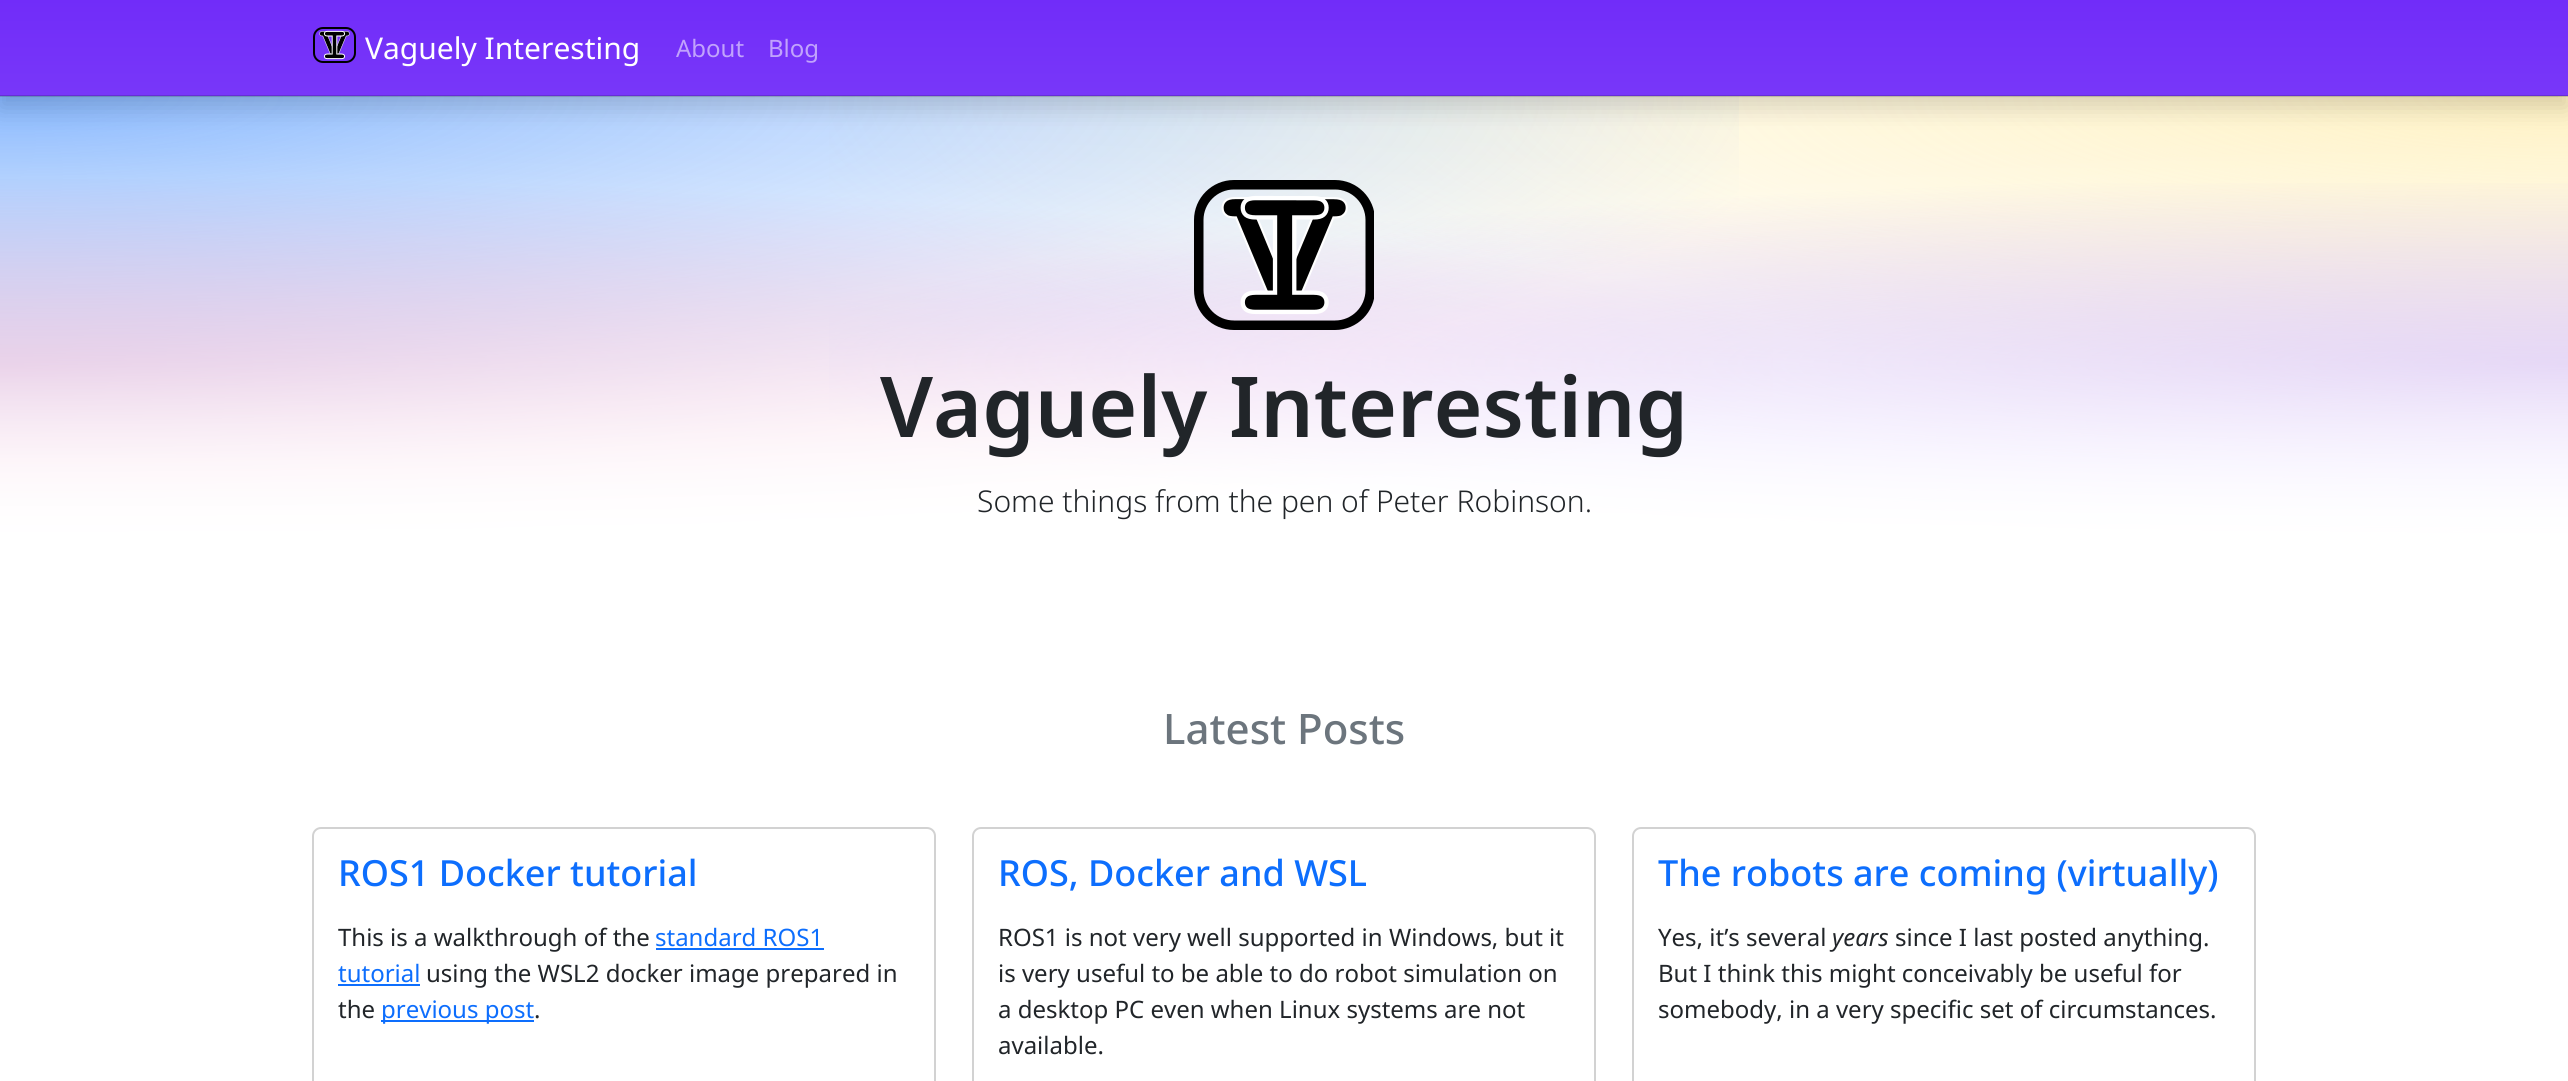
import math
import cairo

surface = cairo.ImageSurface(cairo.FORMAT_RGB24, 2568, 1081)
ctx = cairo.Context(surface)
options = cairo.FontOptions()
options.set_hint_metrics(cairo.HINT_METRICS_OFF)
options.set_hint_style(cairo.HINT_STYLE_NONE)
ctx.set_font_options(options)
ctx.set_miter_limit(4)


def set_color(code):
    ctx.set_source_rgb(*(v / 255 for v in bytes.fromhex(code[-6:])))


def draw_text(x, y, s, family, size, color, bold=False, italic=False):
    ctx.select_font_face(family, cairo.FONT_SLANT_ITALIC if italic else cairo.FONT_SLANT_NORMAL, cairo.FONT_WEIGHT_BOLD if bold else cairo.FONT_WEIGHT_NORMAL)
    ctx.set_font_size(size)
    set_color(color)
    ctx.move_to(x, y)
    ctx.show_text(s)


def fill_rect(x, y, w, h, color):
    set_color(color)
    ctx.rectangle(x, y, w, h)
    ctx.fill()


def rounded_rect(x, y, w, h, r):
    ctx.new_sub_path()
    for i, (u, v) in enumerate([(x + w - r, y + h - r), (x + r, y + h - r), (x + r, y + r), (x + w - r, y + r)]):
        ctx.arc(u, v, r, i * math.pi / 2, (i + 1) * math.pi / 2)
    ctx.close_path()


def draw_shadow(x, y, w, h, r, blur, alpha):
    ctx.push_group_with_content(cairo.CONTENT_ALPHA)
    ctx.set_operator(cairo.OPERATOR_SOURCE)
    for i in range(15, -16, -2):
        e = blur * i / 6
        if min(w, h) + 2 * e > 0:
            ctx.set_source_rgba(0, 0, 0, alpha * math.erfc((i - 1) / 8.5) / 2)
            rounded_rect(x - e, y - e, w + 2 * e, h + 2 * e, max(0, min(r + e + blur * .6, min(w, h) / 2 + e)))
            ctx.fill()
    ctx.mask(ctx.pop_group())


def draw_image(path, x, y, w, h):
    ctx.save()
    ctx.set_source_surface(cairo.ImageSurface.create_from_png(path), x, y)
    ctx.rectangle(x, y, w, h)
    ctx.fill()
    ctx.restore()


set_color("#ffffff")
ctx.paint()
gradient = cairo.RadialGradient(0, 0, 0, 0, 0, 1)
gradient.set_matrix(cairo.Matrix(1 / 3632, 0, 0, 1 / 379, -1 * 0 / 3632, -1 * 364 / 379))
gradient.add_color_stop_rgba(0, 0.922, 0.6, 0.761, 1)
gradient.add_color_stop_rgba(0.5, 1, 1, 1, 1)
ctx.set_source(gradient)
ctx.rectangle(0, 179, 1773, 370)
ctx.fill()
gradient = cairo.RadialGradient(0, 0, 0, 0, 0, 1)
gradient.set_matrix(cairo.Matrix(1 / 3632, 0, 0, 1 / 379, -1 * 2568 / 3632, -1 * 364 / 379))
gradient.add_color_stop_rgba(0, 0.443, 0.173, 0.976, 0.5)
gradient.add_color_stop_rgba(0.5, 0.443, 0.173, 0.976, 0)
ctx.set_source(gradient)
ctx.rectangle(829, 183, 1739, 362)
ctx.fill()
gradient = cairo.RadialGradient(0, 0, 0, 0, 0, 1)
gradient.set_matrix(cairo.Matrix(1 / 3632, 0, 0, 1 / 757, -1 * 2568 / 3632, -1 * 96 / 757))
gradient.add_color_stop_rgba(0, 1, 0.894, 0.518, 0.5)
gradient.add_color_stop_rgba(0.5, 1, 0.894, 0.518, 0)
ctx.set_source(gradient)
ctx.rectangle(829, 96, 1739, 362)
ctx.fill()
gradient = cairo.RadialGradient(0, 0, 0, 0, 0, 1)
gradient.set_matrix(cairo.Matrix(1 / 3632, 0, 0, 1 / 757, -1 * 0 / 3632, -1 * 96 / 757))
gradient.add_color_stop_rgba(0, 0.051, 0.431, 0.992, 0.5)
gradient.add_color_stop_rgba(0.5, 0.051, 0.431, 0.992, 0)
ctx.set_source(gradient)
ctx.rectangle(0, 96, 1739, 362)
ctx.fill()
gradient = cairo.LinearGradient(1284, 96, 1284, 632)
gradient.add_color_stop_rgba(0, 1, 1, 1, 0.01)
gradient.add_color_stop_rgba(0.85, 1, 1, 1, 1)
ctx.set_source(gradient)
ctx.rectangle(0, 101, 2568, 448)
ctx.fill()
set_color("#000000")
draw_shadow(0, 12, 2568, 96, 0, 12, 0.15)
gradient = cairo.LinearGradient(1284, 0, 1284, 96)
gradient.add_color_stop_rgba(0, 0.443, 0.173, 0.976, 1)
gradient.add_color_stop_rgba(1, 0.471, 0.216, 0.976, 1)
ctx.set_source(gradient)
ctx.rectangle(0, 0, 2568, 96)
ctx.fill()
ctx.set_source_rgba(0, 0, 0, 0.15)
ctx.rectangle(0, 95, 2568, 2)
ctx.fill()
draw_image("assets/img1.png", 313, 27, 43, 36)
draw_text(365, 59, "Vaguely Interesting", "Noto Sans", 30, "#ffffff")
draw_text(676, 57, "About", "Noto Sans", 24, "#c1a3fc")
draw_text(768, 57, "Blog", "Noto Sans", 24, "#c1a3fc")
draw_image("assets/img2.png", 1194, 180, 180, 150)
draw_text(880, 437, "Vaguely Interesting", "Noto Sans SemiBold", 84, "#212529")
draw_text(977, 512, "Some things from the pen of Peter Robinson.", "Noto Sans Light", 30, "#212529")
draw_text(1163, 744, "Latest Posts", "Noto Sans Medium", 42, "#6c757d")
rounded_rect(313, 828, 622, 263, 8)
set_color("#d2d2d2")
ctx.stroke()
draw_text(338, 886, "ROS1 Docker tutorial", "Noto Sans Medium", 36, "#0d6efd")
draw_text(338, 946, "This is a walkthrough of the", "Noto Sans", 24, "#212529")
draw_text(655, 946, "standard ROS1", "Noto Sans", 24, "#0d6efd")
fill_rect(656, 948, 168, 2, "#0d6efd")
draw_text(338, 982, "tutorial", "Noto Sans", 24, "#0d6efd")
fill_rect(338, 984, 82, 2, "#0d6efd")
draw_text(426, 982, "using the WSL2 docker image prepared in", "Noto Sans", 24, "#212529")
draw_text(338, 1018, "the", "Noto Sans", 24, "#212529")
fill_rect(381, 1020, 153, 2, "#0d6efd")
draw_text(381, 1018, "previous post", "Noto Sans", 24, "#0d6efd")
draw_text(534, 1018, ".", "Noto Sans", 24, "#212529")
rounded_rect(973, 828, 622, 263, 8)
set_color("#d2d2d2")
ctx.stroke()
draw_text(998, 886, "ROS, Docker and WSL", "Noto Sans Medium", 36, "#0d6efd")
draw_text(998, 946, "ROS1 is not very well supported in Windows, but it", "Noto Sans", 24, "#212529")
draw_text(998, 982, "is very useful to be able to do robot simulation on", "Noto Sans", 24, "#212529")
draw_text(998, 1018, "a desktop PC even when Linux systems are not", "Noto Sans", 24, "#212529")
draw_text(998, 1054, "available.", "Noto Sans", 24, "#212529")
rounded_rect(1633, 828, 622, 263, 8)
set_color("#d2d2d2")
ctx.stroke()
draw_text(1658, 886, "The robots are coming (virtually)", "Noto Sans Medium", 36, "#0d6efd")
draw_text(1658, 946, "Yes, it’s several", "Noto Sans", 24, "#212529")
draw_text(1832, 946, "years", "Noto Sans", 24, "#212529", italic=True)
draw_text(1895, 946, "since I last posted anything.", "Noto Sans", 24, "#212529")
draw_text(1658, 982, "But I think this might conceivably be useful for", "Noto Sans", 24, "#212529")
draw_text(1658, 1018, "somebody, in a very specific set of circumstances.", "Noto Sans", 24, "#212529")
surface.write_to_png("output.png")
